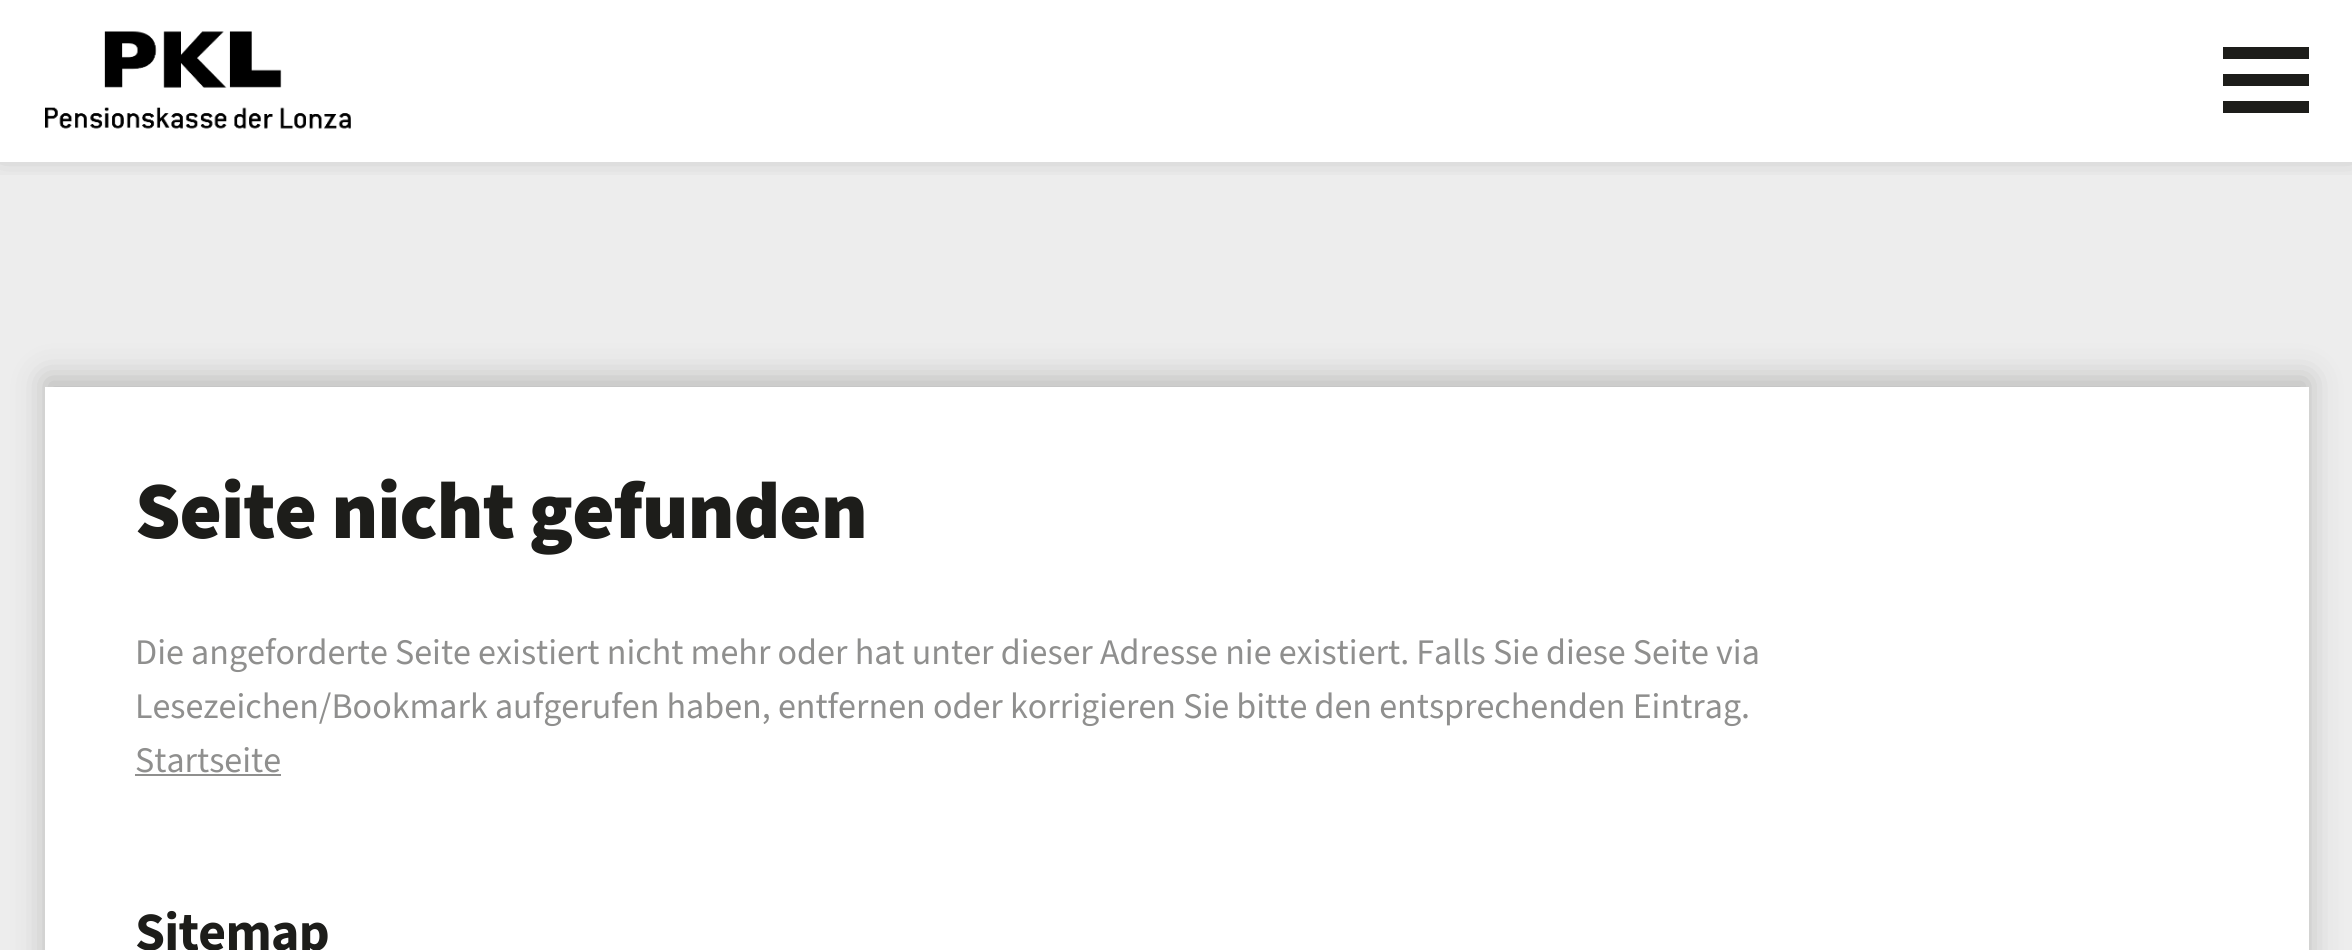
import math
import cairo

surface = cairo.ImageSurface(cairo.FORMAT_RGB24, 2352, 950)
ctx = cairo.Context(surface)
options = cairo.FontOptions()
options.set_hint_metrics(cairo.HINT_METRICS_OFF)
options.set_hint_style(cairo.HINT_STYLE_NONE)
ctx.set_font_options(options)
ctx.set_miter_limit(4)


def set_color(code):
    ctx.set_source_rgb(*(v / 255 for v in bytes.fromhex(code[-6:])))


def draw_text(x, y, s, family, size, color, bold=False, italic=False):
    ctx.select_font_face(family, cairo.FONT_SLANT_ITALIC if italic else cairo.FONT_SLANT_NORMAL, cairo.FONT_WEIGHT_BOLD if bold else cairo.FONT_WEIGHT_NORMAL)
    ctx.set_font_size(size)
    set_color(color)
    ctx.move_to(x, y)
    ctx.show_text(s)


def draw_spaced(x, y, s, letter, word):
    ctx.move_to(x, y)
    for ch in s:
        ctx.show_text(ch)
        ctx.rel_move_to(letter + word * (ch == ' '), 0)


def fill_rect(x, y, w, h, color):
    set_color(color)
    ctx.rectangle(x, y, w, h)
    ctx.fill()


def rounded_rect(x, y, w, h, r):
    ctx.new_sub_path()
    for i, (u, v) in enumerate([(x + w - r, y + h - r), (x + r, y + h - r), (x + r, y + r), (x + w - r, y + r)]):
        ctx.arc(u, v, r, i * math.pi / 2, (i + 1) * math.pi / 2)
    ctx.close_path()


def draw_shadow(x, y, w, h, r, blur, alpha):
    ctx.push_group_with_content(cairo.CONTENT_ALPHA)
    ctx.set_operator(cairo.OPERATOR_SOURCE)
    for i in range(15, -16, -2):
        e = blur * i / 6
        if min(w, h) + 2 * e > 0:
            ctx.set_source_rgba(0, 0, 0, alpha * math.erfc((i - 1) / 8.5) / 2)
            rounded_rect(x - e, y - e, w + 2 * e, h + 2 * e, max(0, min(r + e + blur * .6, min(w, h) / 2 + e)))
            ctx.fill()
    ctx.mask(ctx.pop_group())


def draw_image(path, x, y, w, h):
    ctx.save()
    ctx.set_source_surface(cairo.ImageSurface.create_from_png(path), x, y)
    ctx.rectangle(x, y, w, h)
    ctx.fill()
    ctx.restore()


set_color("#ededed")
ctx.paint()
fill_rect(0, 0, 2352, 162, "#ffffff")
ctx.save()
ctx.rectangle(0, 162, 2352, 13)
ctx.clip()
set_color("#000000")
draw_shadow(0, -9, 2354, 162, 0, 16, 0.25)
ctx.restore()
draw_image("assets/img1.png", 45, 31, 306, 98)
fill_rect(2223, 47, 86, 12, "#1d1d1a")
fill_rect(2223, 74, 86, 12, "#1d1d1a")
fill_rect(2223, 101, 86, 12, "#1d1d1a")
set_color("#1d1d1a")
draw_shadow(45, 378, 2264, 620, 0, 16, 0.25)
fill_rect(45, 387, 2264, 563, "#ffffff")
ctx.select_font_face("Source Sans 3 Black")
ctx.set_font_size(81)
set_color("#1d1d1a")
draw_spaced(135, 538, "Seite nicht gefunden", -1.1, 0)
draw_text(135, 664, "Die angeforderte Seite existiert nicht mehr oder hat unter dieser Adresse nie existiert. Falls Sie diese Seite via", "Source Sans 3", 36, "#8f8f8e")
draw_text(135, 718, "Lesezeichen/Bookmark aufgerufen haben, entfernen oder korrigieren Sie bitte den entsprechenden Eintrag.", "Source Sans 3", 36, "#8f8f8e")
draw_text(135, 772, "Startseite", "Source Sans 3", 36, "#8f8f8e")
fill_rect(135, 774, 146, 2, "#8f8f8e")
ctx.select_font_face("Source Sans 3", cairo.FONT_SLANT_NORMAL, cairo.FONT_WEIGHT_BOLD)
ctx.set_font_size(54)
set_color("#1d1d1a")
draw_spaced(135, 950, "Sitemap", -0.75, 0)
surface.write_to_png("output.png")
